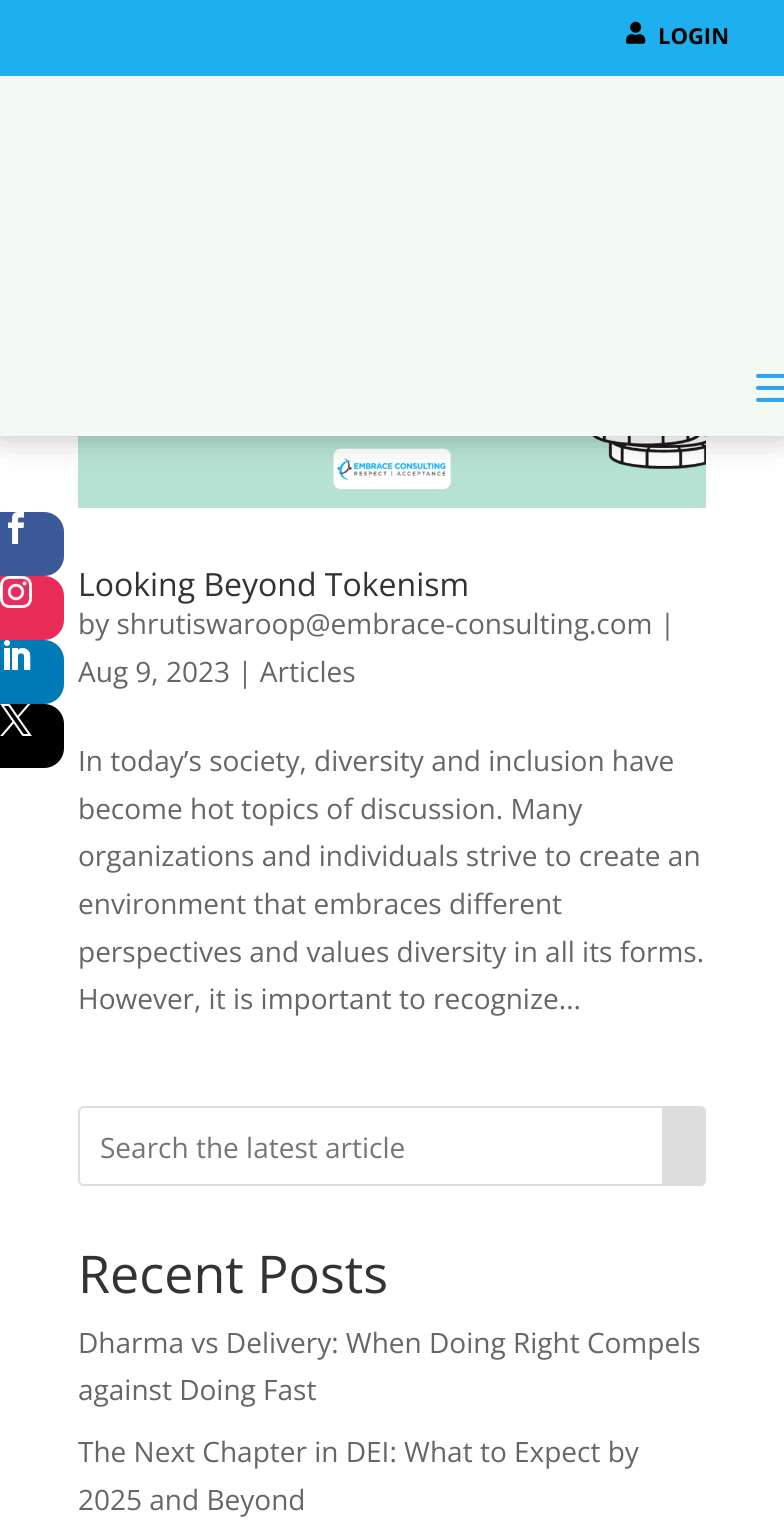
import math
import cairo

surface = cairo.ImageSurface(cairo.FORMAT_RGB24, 784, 1533)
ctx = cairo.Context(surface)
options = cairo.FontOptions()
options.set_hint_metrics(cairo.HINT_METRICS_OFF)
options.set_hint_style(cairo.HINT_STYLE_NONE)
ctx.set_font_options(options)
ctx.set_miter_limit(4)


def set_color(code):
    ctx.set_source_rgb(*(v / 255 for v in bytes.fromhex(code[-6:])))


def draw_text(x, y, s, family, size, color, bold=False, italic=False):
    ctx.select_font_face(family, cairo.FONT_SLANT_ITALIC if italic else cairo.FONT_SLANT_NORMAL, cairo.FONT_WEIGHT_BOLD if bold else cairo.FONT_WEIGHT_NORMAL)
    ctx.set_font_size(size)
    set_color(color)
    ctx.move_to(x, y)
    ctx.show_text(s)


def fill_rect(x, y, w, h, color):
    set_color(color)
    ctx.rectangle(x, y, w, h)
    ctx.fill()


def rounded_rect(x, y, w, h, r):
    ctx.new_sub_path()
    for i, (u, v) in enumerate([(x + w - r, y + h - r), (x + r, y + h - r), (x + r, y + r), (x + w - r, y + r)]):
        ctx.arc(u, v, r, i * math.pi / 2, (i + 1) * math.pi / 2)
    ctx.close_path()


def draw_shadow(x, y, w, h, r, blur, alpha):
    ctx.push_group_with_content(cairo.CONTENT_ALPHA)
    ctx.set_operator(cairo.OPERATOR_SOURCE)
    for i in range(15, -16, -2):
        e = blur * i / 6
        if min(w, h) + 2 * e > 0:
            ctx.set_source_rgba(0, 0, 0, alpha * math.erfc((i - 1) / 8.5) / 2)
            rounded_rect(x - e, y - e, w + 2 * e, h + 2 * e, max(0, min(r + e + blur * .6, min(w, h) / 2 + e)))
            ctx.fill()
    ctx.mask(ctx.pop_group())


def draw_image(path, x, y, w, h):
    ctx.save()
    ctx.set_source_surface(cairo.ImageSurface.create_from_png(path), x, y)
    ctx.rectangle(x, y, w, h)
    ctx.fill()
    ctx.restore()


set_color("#ffffff")
ctx.paint()
draw_image("assets/img7.png", 78, 436, 628, 72)
set_color("#000000")
draw_shadow(2, 2, 780, 432, 0, 17, 0.3)
fill_rect(0, 76, 784, 360, "#f3f9f3")
fill_rect(0, 0, 784, 76, "#1eafef")
draw_image("assets/img1.png", 626, 21, 20, 23)
draw_text(658, 44, "LOGIN", "Open Sans", 22, "#000000", bold=True)
draw_image("assets/img2.png", 756, 373, 28, 29)
set_color("#3b5998")
ctx.new_path()
ctx.move_to(0, 512)
ctx.line_to(44, 512)
ctx.curve_to(55, 512, 64, 521, 64, 532)
ctx.line_to(64, 556)
ctx.curve_to(64, 567, 55, 576, 44, 576)
ctx.line_to(0, 576)
ctx.close_path()
ctx.fill()
draw_image("assets/img3.png", 8, 512, 17, 32)
set_color("#ea2c59")
ctx.new_path()
ctx.move_to(0, 576)
ctx.line_to(44, 576)
ctx.curve_to(55, 576, 64, 585, 64, 596)
ctx.line_to(64, 620)
ctx.curve_to(64, 631, 55, 640, 44, 640)
ctx.line_to(0, 640)
ctx.close_path()
ctx.fill()
draw_image("assets/img4.png", 0, 576, 32, 32)
set_color("#007bb6")
ctx.new_path()
ctx.move_to(0, 640)
ctx.line_to(44, 640)
ctx.curve_to(55, 640, 64, 649, 64, 660)
ctx.line_to(64, 684)
ctx.curve_to(64, 695, 55, 704, 44, 704)
ctx.line_to(0, 704)
ctx.close_path()
ctx.fill()
draw_image("assets/img5.png", 4, 640, 27, 30)
set_color("#000000")
ctx.new_path()
ctx.move_to(0, 704)
ctx.line_to(44, 704)
ctx.curve_to(55, 704, 64, 713, 64, 724)
ctx.line_to(64, 748)
ctx.curve_to(64, 759, 55, 768, 44, 768)
ctx.line_to(0, 768)
ctx.close_path()
ctx.fill()
draw_image("assets/img6.png", 0, 704, 32, 32)
draw_text(78, 596, "Looking Beyond Tokenism", "Open Sans", 32, "#333333")
draw_text(78, 634, "by shrutiswaroop@embrace-consulting.com |", "Open Sans", 28, "#666666")
draw_text(78, 682, "Aug 9, 2023 | Articles", "Open Sans", 28, "#666666")
draw_text(78, 771, "In today’s society, diversity and inclusion have", "Open Sans", 28, "#666666")
draw_text(78, 819, "become hot topics of discussion. Many", "Open Sans", 28, "#666666")
draw_text(78, 866, "organizations and individuals strive to create an", "Open Sans", 28, "#666666")
draw_text(78, 914, "environment that embraces different", "Open Sans", 28, "#666666")
draw_text(78, 962, "perspectives and values diversity in all its forms.", "Open Sans", 28, "#666666")
draw_text(78, 1009, "However, it is important to recognize...", "Open Sans", 28, "#666666")
rounded_rect(79, 1107, 626, 78, 5)
set_color("#dddddd")
ctx.stroke()
draw_text(100, 1158, "Search the latest article", "Open Sans", 28, "#757575")
set_color("#dddddd")
ctx.new_path()
ctx.move_to(663, 1107)
ctx.line_to(700, 1107)
ctx.curve_to(703, 1107, 705, 1109, 705, 1112)
ctx.line_to(705, 1180)
ctx.curve_to(705, 1183, 703, 1185, 700, 1185)
ctx.line_to(663, 1185)
ctx.close_path()
ctx.fill_preserve()
ctx.stroke()
draw_text(78, 1293, "Recent Posts", "Open Sans", 52, "#333333")
draw_text(78, 1353, "Dharma vs Delivery: When Doing Right Compels", "Open Sans", 28, "#666666")
draw_text(78, 1400, "against Doing Fast", "Open Sans", 28, "#666666")
draw_text(78, 1462, "The Next Chapter in DEI: What to Expect by", "Open Sans", 28, "#666666")
draw_text(78, 1510, "2025 and Beyond", "Open Sans", 28, "#666666")
surface.write_to_png("output.png")
